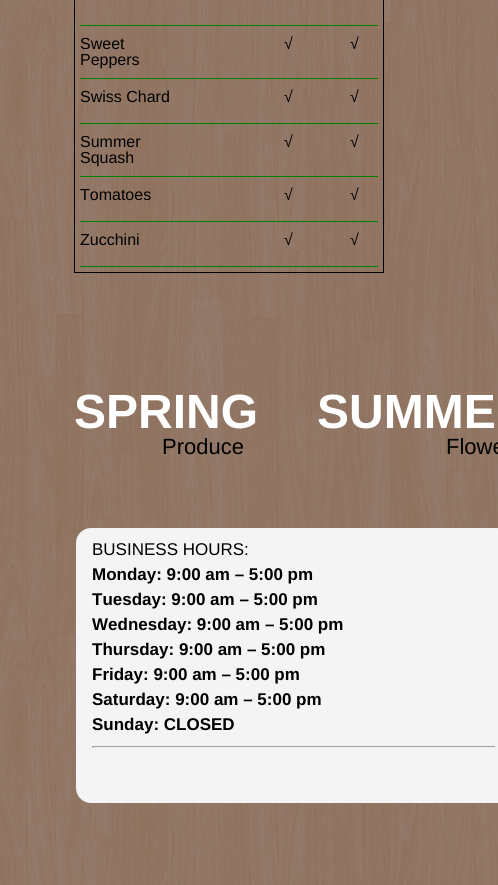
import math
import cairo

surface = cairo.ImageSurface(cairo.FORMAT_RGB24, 498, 885)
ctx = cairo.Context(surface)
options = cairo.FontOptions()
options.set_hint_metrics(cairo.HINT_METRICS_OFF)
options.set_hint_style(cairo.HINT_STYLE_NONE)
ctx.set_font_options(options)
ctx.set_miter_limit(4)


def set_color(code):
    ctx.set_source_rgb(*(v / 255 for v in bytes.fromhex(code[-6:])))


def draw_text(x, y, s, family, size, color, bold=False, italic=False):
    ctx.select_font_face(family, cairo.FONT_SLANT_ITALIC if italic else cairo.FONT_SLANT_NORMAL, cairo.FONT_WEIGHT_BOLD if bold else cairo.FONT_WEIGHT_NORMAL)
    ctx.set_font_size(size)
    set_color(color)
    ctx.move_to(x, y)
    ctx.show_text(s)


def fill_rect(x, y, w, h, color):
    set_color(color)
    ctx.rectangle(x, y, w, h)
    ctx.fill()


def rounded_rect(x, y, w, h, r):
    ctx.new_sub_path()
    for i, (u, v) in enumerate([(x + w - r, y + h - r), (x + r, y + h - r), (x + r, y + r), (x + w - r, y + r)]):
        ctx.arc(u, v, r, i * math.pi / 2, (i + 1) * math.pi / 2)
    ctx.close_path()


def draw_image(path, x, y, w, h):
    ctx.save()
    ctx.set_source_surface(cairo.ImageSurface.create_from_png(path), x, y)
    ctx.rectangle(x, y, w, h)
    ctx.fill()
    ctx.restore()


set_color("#ffffff")
ctx.paint()
draw_image("assets/img1.png", 0, 0, 498, 885)
ctx.rectangle(74.5, -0.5, 309, 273)
set_color("#000000")
ctx.set_line_width(1)
ctx.stroke()
fill_rect(80, 25, 298, 1, "#008000")
fill_rect(80, 78, 298, 1, "#008000")
draw_text(80, 49, "Sweet", "Liberation Sans", 16, "#000000")
draw_text(80, 65, "Peppers", "Liberation Sans", 16, "#000000")
draw_text(284, 49, "√", "Liberation Sans", 16, "#000000")
draw_text(350, 49, "√", "Liberation Sans", 16, "#000000")
fill_rect(80, 123, 298, 1, "#008000")
draw_text(80, 102, "Swiss Chard", "Liberation Sans", 16, "#000000")
draw_text(284, 102, "√", "Liberation Sans", 16, "#000000")
draw_text(350, 102, "√", "Liberation Sans", 16, "#000000")
fill_rect(80, 176, 298, 1, "#008000")
draw_text(80, 147, "Summer", "Liberation Sans", 16, "#000000")
draw_text(80, 163, "Squash", "Liberation Sans", 16, "#000000")
draw_text(284, 147, "√", "Liberation Sans", 16, "#000000")
draw_text(350, 147, "√", "Liberation Sans", 16, "#000000")
fill_rect(80, 221, 298, 1, "#008000")
draw_text(80, 200, "Tomatoes", "Liberation Sans", 16, "#000000")
draw_text(284, 200, "√", "Liberation Sans", 16, "#000000")
draw_text(350, 200, "√", "Liberation Sans", 16, "#000000")
fill_rect(80, 266, 298, 1, "#008000")
draw_text(80, 245, "Zucchini", "Liberation Sans", 16, "#000000")
draw_text(284, 245, "√", "Liberation Sans", 16, "#000000")
draw_text(350, 245, "√", "Liberation Sans", 16, "#000000")
draw_text(74, 428, "SPRING", "Liberation Sans", 48, "#ffffff", bold=True)
draw_text(317, 428, "SUMME", "Liberation Sans", 48, "#ffffff", bold=True)
draw_text(162, 454, "Produce", "Liberation Sans", 22, "#000000")
draw_text(446, 454, "Flowe", "Liberation Sans", 22, "#000000")
set_color("#f4f4f4")
rounded_rect(77, 529, 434, 273, 14)
ctx.fill_preserve()
ctx.set_line_width(2)
ctx.stroke()
draw_text(92, 555, "BUSINESS HOURS:", "Liberation Sans", 17, "#000000")
draw_text(92, 580, "Monday: 9:00 am – 5:00 pm", "Liberation Sans", 17, "#000000", bold=True)
draw_text(92, 605, "Tuesday: 9:00 am – 5:00 pm", "Liberation Sans", 17, "#000000", bold=True)
draw_text(92, 630, "Wednesday: 9:00 am – 5:00 pm", "Liberation Sans", 17, "#000000", bold=True)
draw_text(92, 655, "Thursday: 9:00 am – 5:00 pm", "Liberation Sans", 17, "#000000", bold=True)
draw_text(92, 680, "Friday: 9:00 am – 5:00 pm", "Liberation Sans", 17, "#000000", bold=True)
draw_text(92, 705, "Saturday: 9:00 am – 5:00 pm", "Liberation Sans", 17, "#000000", bold=True)
draw_text(92, 730, "Sunday: CLOSED", "Liberation Sans", 17, "#000000", bold=True)
fill_rect(92, 746, 404, 1, "#9f9f9f")
fill_rect(495, 746, 1, 2, "#eeeeee")
fill_rect(92, 747, 404, 1, "#eeeeee")
fill_rect(92, 746, 1, 2, "#9f9f9f")
surface.write_to_png("output.png")
